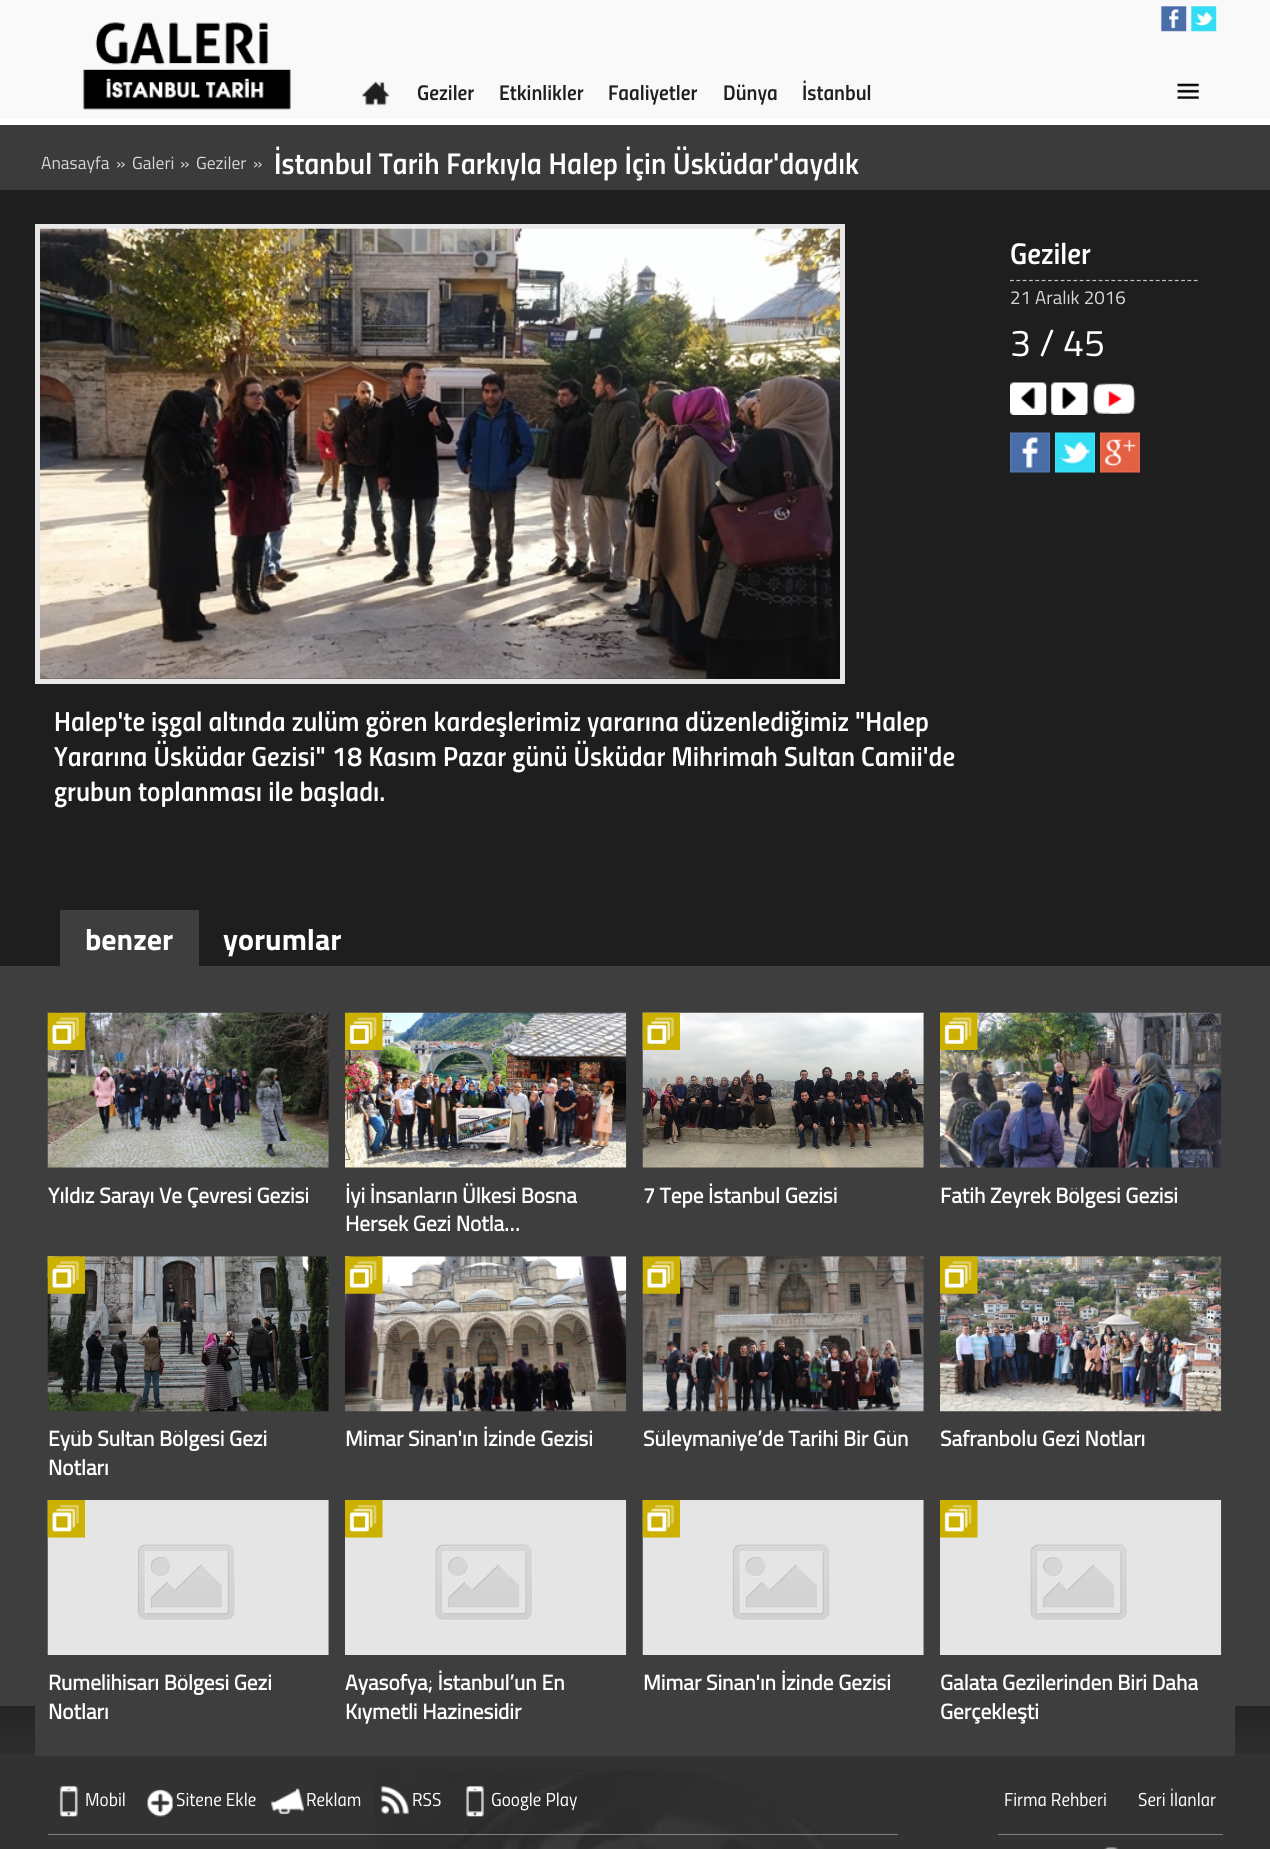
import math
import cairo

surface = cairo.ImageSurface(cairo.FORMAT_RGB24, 1270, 1849)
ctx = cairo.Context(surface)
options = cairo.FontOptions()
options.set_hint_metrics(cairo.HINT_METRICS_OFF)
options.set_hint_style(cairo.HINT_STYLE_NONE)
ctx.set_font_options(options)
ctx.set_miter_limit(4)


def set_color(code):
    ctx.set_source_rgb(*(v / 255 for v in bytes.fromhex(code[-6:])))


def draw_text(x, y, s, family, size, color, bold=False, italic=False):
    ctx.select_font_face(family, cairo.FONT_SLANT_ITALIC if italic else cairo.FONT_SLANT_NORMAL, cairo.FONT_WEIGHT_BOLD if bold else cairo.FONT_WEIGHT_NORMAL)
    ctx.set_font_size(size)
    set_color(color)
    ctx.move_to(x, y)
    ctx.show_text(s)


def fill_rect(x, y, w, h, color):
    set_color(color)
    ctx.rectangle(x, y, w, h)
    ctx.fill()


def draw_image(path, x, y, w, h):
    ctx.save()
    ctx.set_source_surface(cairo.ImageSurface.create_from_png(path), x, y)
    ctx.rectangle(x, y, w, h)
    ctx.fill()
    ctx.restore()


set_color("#f9f9f9")
ctx.paint()
fill_rect(0, 119, 1270, 6, "#ffffff")
draw_image("assets/img1.png", 1161, 6, 26, 26)
draw_image("assets/img2.png", 1191, 6, 26, 26)
draw_image("assets/img3.png", 83, 22, 208, 88)
draw_image("assets/img4.png", 362, 81, 28, 25)
draw_text(417, 100, "Geziler", "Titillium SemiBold", 21.25, "#1f1f1f", italic=True)
draw_text(499, 100, "Etkinlikler", "Titillium SemiBold", 21.25, "#1f1f1f", italic=True)
draw_text(608, 100, "Faaliyetler", "Titillium SemiBold", 21.25, "#1f1f1f", italic=True)
draw_text(723, 100, "Dünya", "Titillium SemiBold", 21.25, "#1f1f1f", italic=True)
draw_text(802, 100, "İstanbul", "Titillium SemiBold", 21.25, "#1f1f1f", italic=True)
draw_image("assets/img5.png", 1177, 83, 22, 16)
fill_rect(0, 125, 1270, 65, "#3b3b3b")
draw_text(41, 169, "Anasayfa", "Titillium", 17.5, "#d8d8d8")
draw_text(116, 169, "»", "Titillium", 17.5, "#d8d8d8")
draw_text(132, 169, "Galeri", "Titillium", 17.5, "#d8d8d8")
draw_text(180, 169, "»", "Titillium", 17.5, "#d8d8d8")
draw_text(196, 169, "Geziler", "Titillium", 17.5, "#d8d8d8")
draw_text(253, 169, "»", "Titillium", 17.5, "#d8d8d8")
draw_text(274, 174, "İstanbul Tarih Farkıyla Halep İçin Üsküdar'daydık", "Titillium SemiBold", 30, "#ffffff", italic=True)
fill_rect(0, 190, 1270, 776, "#1e1e1e")
ctx.new_path()
ctx.move_to(1010, 280.5)
ctx.line_to(1197.5, 280.5)
set_color("#c6c6c6")
ctx.set_line_width(1.2)
ctx.set_dash([3.75, 2.59])
ctx.stroke()
draw_text(1010, 264, "Geziler", "Titillium SemiBold", 30, "#ffffff", italic=True)
draw_text(1010, 304, "21 Aralık 2016", "Titillium", 18.75, "#d8d8d8")
draw_text(1010, 356, "3 / 45", "Titillium", 37.5, "#ffffff")
draw_image("assets/img6.png", 1010, 382, 37, 33)
draw_image("assets/img7.png", 1051, 382, 37, 33)
draw_image("assets/img8.png", 1093, 383, 43, 31)
draw_image("assets/img9.png", 1010, 432, 40, 41)
draw_image("assets/img10.png", 1055, 432, 40, 41)
draw_image("assets/img11.png", 1100, 432, 40, 41)
ctx.rectangle(37.5, 226.5, 805, 455)
set_color("#e8e8e8")
ctx.set_line_width(5)
ctx.set_dash([])
ctx.stroke()
draw_image("assets/img12.png", 40, 228, 800, 451)
draw_text(54, 731, "Halep'te işgal altında zulüm gören kardeşlerimiz yararına düzenlediğimiz \"Halep", "Titillium SemiBold", 27.5, "#ffffff", italic=True)
draw_text(54, 766, "Yararına Üsküdar Gezisi\" 18 Kasım Pazar günü Üsküdar Mihrimah Sultan Camii'de", "Titillium SemiBold", 27.5, "#ffffff", italic=True)
draw_text(54, 801, "grubun toplanması ile başladı.", "Titillium SemiBold", 27.5, "#ffffff", italic=True)
fill_rect(60, 910, 139, 56, "#3e3e3e")
draw_text(85, 950, "benzer", "Titillium", 30, "#ffffff", bold=True)
draw_text(223, 950, "yorumlar", "Titillium", 30, "#ffffff", bold=True)
fill_rect(0, 966, 1270, 740, "#3e3e3e")
fill_rect(0, 1706, 1270, 143, "#323232")
draw_image("assets/img36.png", 0, 1706, 1270, 47)
fill_rect(35, 1706, 1200, 50, "#3e3e3e")
draw_image("assets/img13.png", 47, 1012, 282, 156)
draw_image("assets/img14.png", 47, 1012, 38, 38)
draw_text(48, 1203, "Yıldız Sarayı Ve Çevresi Gezisi", "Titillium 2", 21.25, "#ffffff", bold=True)
draw_image("assets/img15.png", 345, 1012, 282, 156)
draw_image("assets/img16.png", 345, 1012, 38, 38)
draw_text(345, 1203, "İyi İnsanların Ülkesi Bosna", "Titillium 2", 21.25, "#ffffff", bold=True)
draw_text(345, 1231, "Hersek Gezi Notla…", "Titillium 2", 21.25, "#ffffff", bold=True)
draw_image("assets/img17.png", 642, 1012, 282, 156)
draw_image("assets/img18.png", 642, 1012, 38, 38)
draw_text(643, 1203, "7 Tepe İstanbul Gezisi", "Titillium 2", 21.25, "#ffffff", bold=True)
draw_image("assets/img19.png", 940, 1012, 282, 156)
draw_image("assets/img20.png", 940, 1012, 38, 38)
draw_text(940, 1203, "Fatih Zeyrek Bölgesi Gezisi", "Titillium 2", 21.25, "#ffffff", bold=True)
draw_image("assets/img21.png", 47, 1256, 282, 156)
draw_image("assets/img22.png", 47, 1256, 38, 38)
draw_text(48, 1446, "Eyüb Sultan Bölgesi Gezi", "Titillium 2", 21.25, "#ffffff", bold=True)
draw_text(48, 1475, "Notları", "Titillium 2", 21.25, "#ffffff", bold=True)
draw_image("assets/img23.png", 345, 1256, 282, 156)
draw_image("assets/img24.png", 345, 1256, 38, 38)
draw_text(345, 1446, "Mimar Sinan'ın İzinde Gezisi", "Titillium 2", 21.25, "#ffffff", bold=True)
draw_image("assets/img25.png", 642, 1256, 282, 156)
draw_image("assets/img26.png", 642, 1256, 38, 38)
draw_text(643, 1446, "Süleymaniye’de Tarihi Bir Gün", "Titillium 2", 21.25, "#ffffff", bold=True)
draw_image("assets/img27.png", 940, 1256, 282, 156)
draw_image("assets/img28.png", 940, 1256, 38, 38)
draw_text(940, 1446, "Safranbolu Gezi Notları", "Titillium 2", 21.25, "#ffffff", bold=True)
draw_image("assets/img29.png", 47, 1500, 282, 155)
draw_image("assets/img30.png", 47, 1500, 38, 38)
draw_text(48, 1690, "Rumelihisarı Bölgesi Gezi", "Titillium 2", 21.25, "#ffffff", bold=True)
draw_text(48, 1719, "Notları", "Titillium 2", 21.25, "#ffffff", bold=True)
draw_image("assets/img31.png", 345, 1500, 282, 155)
draw_image("assets/img32.png", 345, 1500, 38, 38)
draw_text(345, 1690, "Ayasofya; İstanbul’un En", "Titillium 2", 21.25, "#ffffff", bold=True)
draw_text(345, 1719, "Kıymetli Hazinesidir", "Titillium 2", 21.25, "#ffffff", bold=True)
draw_image("assets/img29.png", 642, 1500, 282, 155)
draw_image("assets/img33.png", 642, 1500, 38, 38)
draw_text(643, 1690, "Mimar Sinan'ın İzinde Gezisi", "Titillium 2", 21.25, "#ffffff", bold=True)
draw_image("assets/img34.png", 940, 1500, 282, 155)
draw_image("assets/img35.png", 940, 1500, 38, 38)
draw_text(940, 1690, "Galata Gezilerinden Biri Daha", "Titillium 2", 21.25, "#ffffff", bold=True)
draw_text(940, 1719, "Gerçekleşti", "Titillium 2", 21.25, "#ffffff", bold=True)
draw_image("assets/img37.png", 374, 1769, 449, 80)
fill_rect(48, 1834, 850, 1, "#7f7f7f")
draw_image("assets/img38.png", 59, 1786, 19, 31)
draw_text(85, 1806, "Mobil", "Titillium 2", 18.75, "#ffffff")
draw_image("assets/img39.png", 147, 1789, 26, 28)
draw_text(176, 1806, "Sitene Ekle", "Titillium 2", 18.75, "#ffffff")
draw_image("assets/img40.png", 271, 1788, 33, 26)
draw_text(306, 1806, "Reklam", "Titillium 2", 18.75, "#ffffff")
draw_image("assets/img41.png", 381, 1786, 28, 28)
draw_text(412, 1806, "RSS", "Titillium 2", 18.75, "#ffffff")
draw_image("assets/img42.png", 466, 1786, 18, 31)
draw_text(491, 1806, "Google Play", "Titillium 2", 18.75, "#ffffff")
fill_rect(998, 1834, 225, 1, "#7f7f7f")
draw_text(1004, 1806, "Firma Rehberi", "Titillium 2", 18.75, "#ffffff")
draw_text(1138, 1806, "Seri İlanlar", "Titillium 2", 18.75, "#ffffff")
draw_image("assets/img43.png", 1104, 1847, 15, 2)
surface.write_to_png("output.png")
